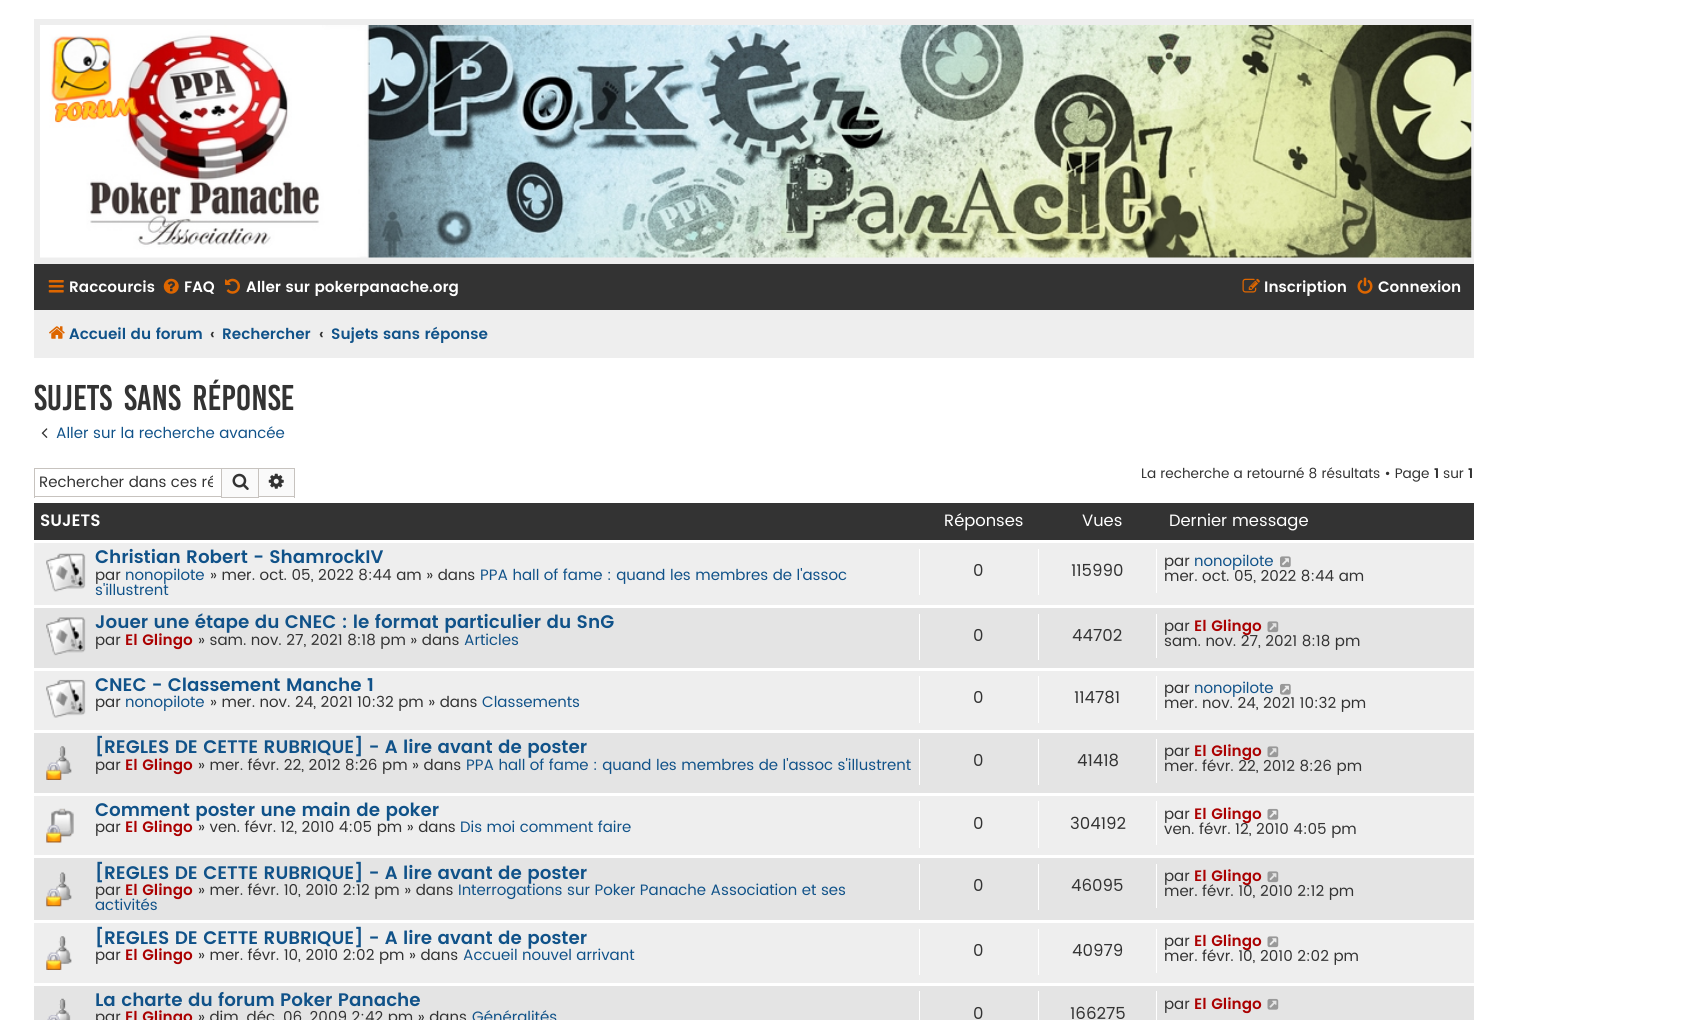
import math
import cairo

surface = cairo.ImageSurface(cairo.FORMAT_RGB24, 1686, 1020)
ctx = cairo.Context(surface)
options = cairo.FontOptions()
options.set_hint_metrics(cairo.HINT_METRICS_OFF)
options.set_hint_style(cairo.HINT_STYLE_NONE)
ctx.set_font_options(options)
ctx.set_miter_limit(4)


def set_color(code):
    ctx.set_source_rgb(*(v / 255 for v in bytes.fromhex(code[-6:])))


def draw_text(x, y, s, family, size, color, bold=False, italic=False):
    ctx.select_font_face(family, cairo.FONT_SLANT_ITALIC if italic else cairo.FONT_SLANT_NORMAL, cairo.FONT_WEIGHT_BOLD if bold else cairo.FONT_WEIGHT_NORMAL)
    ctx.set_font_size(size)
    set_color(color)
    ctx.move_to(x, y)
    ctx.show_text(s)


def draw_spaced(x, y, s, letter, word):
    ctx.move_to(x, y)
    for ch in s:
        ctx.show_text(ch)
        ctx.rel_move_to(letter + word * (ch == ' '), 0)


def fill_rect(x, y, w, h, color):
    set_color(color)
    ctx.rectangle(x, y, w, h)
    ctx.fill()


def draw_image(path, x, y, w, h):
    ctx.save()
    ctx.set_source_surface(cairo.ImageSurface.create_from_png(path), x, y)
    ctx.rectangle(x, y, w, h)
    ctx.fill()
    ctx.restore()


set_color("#ffffff")
ctx.paint()
fill_rect(34, 19, 1440, 245, "#eeeeee")
draw_image("assets/img1.png", 40, 25, 1432, 233)
fill_rect(34, 264, 1440, 46, "#333333")
draw_image("assets/img2.png", 48, 280, 16, 13)
draw_text(69, 292, "Raccourcis", "Poppins SemiBold", 15.1, "#ffffff")
draw_image("assets/img3.png", 163, 278, 16, 16)
draw_text(184, 292, "FAQ", "Poppins SemiBold", 15.1, "#ffffff")
draw_image("assets/img4.png", 225, 278, 15, 16)
draw_text(246, 292, "Aller sur pokerpanache.org", "Poppins SemiBold", 15.1, "#ffffff")
draw_image("assets/img5.png", 1242, 278, 18, 15)
draw_text(1264, 292, "Inscription", "Poppins SemiBold", 15.1, "#ffffff")
draw_image("assets/img6.png", 1357, 277, 16, 17)
draw_text(1378, 292, "Connexion", "Poppins SemiBold", 15.1, "#ffffff")
fill_rect(34, 310, 1440, 48, "#eeeeee")
draw_image("assets/img7.png", 49, 326, 16, 13)
draw_text(69, 339, "Accueil du forum", "Poppins SemiBold", 15.1, "#105289")
draw_text(210, 339, "‹", "Poppins SemiBold", 15.1, "#333333")
draw_text(222, 339, "Rechercher", "Poppins SemiBold", 15.1, "#105289")
draw_text(319, 339, "‹", "Poppins SemiBold", 15.1, "#333333")
draw_text(331, 339, "Sujets sans réponse", "Poppins SemiBold", 15.1, "#105289")
ctx.select_font_face("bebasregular")
ctx.set_font_size(27.5)
set_color("#333333")
draw_spaced(34, 410, "Sujets sans réponse", 0, 5)
draw_image("assets/img8.png", 41, 428, 7, 10)
draw_text(56, 438, "Aller sur la recherche avancée", "Poppins", 15.1, "#105289")
fill_rect(34, 468, 187, 1, "#c7c3bf")
fill_rect(34, 496, 187, 1, "#c7c3bf")
fill_rect(34, 468, 1, 30, "#c7c3bf")
ctx.save()
ctx.rectangle(39, 475, 174, 15)
ctx.clip()
draw_text(39, 487, "Rechercher dans ces ré", "Poppins", 15.1, "#333333")
ctx.restore()
set_color("#fafafa")
ctx.rectangle(221.5, 468.5, 37, 29)
ctx.fill_preserve()
set_color("#c7c3bf")
ctx.set_line_width(1)
ctx.stroke()
draw_image("assets/img9.png", 232, 473, 17, 17)
fill_rect(259, 469, 35, 27, "#fafafa")
fill_rect(259, 468, 36, 1, "#c7c3bf")
fill_rect(294, 468, 1, 30, "#c7c3bf")
fill_rect(259, 496, 36, 1, "#c7c3bf")
draw_image("assets/img10.png", 268, 473, 16, 16)
draw_text(1141, 478, "La recherche a retourné 8 résultats • Page", "Poppins", 13.75, "#333333")
draw_text(1434, 478, "1", "Poppins SemiBold", 13.75, "#333333")
draw_text(1443, 478, "sur", "Poppins", 13.75, "#333333")
draw_text(1468, 478, "1", "Poppins SemiBold", 13.75, "#333333")
fill_rect(34, 503, 1440, 37, "#333333")
draw_text(40, 526, "SUJETS", "Poppins SemiBold", 16.5, "#ffffff")
draw_text(944, 526, "Réponses", "Poppins", 16.5, "#ffffff")
draw_text(1082, 526, "Vues", "Poppins", 16.5, "#ffffff")
draw_text(1169, 526, "Dernier message", "Poppins", 16.5, "#ffffff")
fill_rect(34, 543, 1440, 62, "#eeeeee")
draw_image("assets/img11.png", 46, 553, 40, 39)
draw_text(95, 563, "Christian Robert - ShamrockIV", "Poppins SemiBold", 18.15, "#105289")
draw_text(95, 580, "par", "Poppins", 15.1, "#333333")
draw_text(125, 580, "nonopilote", "Poppins", 15.1, "#105289")
draw_text(210, 580, "» mer. oct. 05, 2022 8:44 am » dans", "Poppins", 15.1, "#333333")
draw_text(480, 580, "PPA hall of fame : quand les membres de l'assoc", "Poppins", 15.1, "#105289")
draw_text(95, 595, "s'illustrent", "Poppins", 15.1, "#105289")
fill_rect(919, 549, 1, 46, "#ffffff")
draw_text(973, 576, "0", "Poppins", 16.5, "#333333")
fill_rect(1038, 549, 1, 46, "#ffffff")
draw_text(1071, 576, "115990", "Poppins", 16.5, "#333333")
fill_rect(1156, 549, 1, 44, "#ffffff")
draw_text(1164, 566, "par", "Poppins", 15.1, "#333333")
draw_text(1194, 566, "nonopilote", "Poppins", 15.1, "#105289")
draw_image("assets/img12.png", 1280, 556, 11, 12)
draw_text(1164, 581, "mer. oct. 05, 2022 8:44 am", "Poppins", 15.1, "#333333")
fill_rect(34, 608, 1440, 60, "#e4e4e4")
draw_image("assets/img13.png", 46, 617, 40, 39)
draw_text(95, 628, "Jouer une étape du CNEC : le format particulier du SnG", "Poppins SemiBold", 18.15, "#105289")
draw_text(95, 645, "par", "Poppins", 15.1, "#333333")
draw_text(125, 645, "El Glingo", "Poppins SemiBold", 15.1, "#aa0000")
draw_text(198, 645, "» sam. nov. 27, 2021 8:18 pm » dans", "Poppins", 15.1, "#333333")
draw_text(464, 645, "Articles", "Poppins", 15.1, "#105289")
fill_rect(919, 614, 1, 46, "#ffffff")
draw_text(973, 641, "0", "Poppins", 16.5, "#333333")
fill_rect(1038, 614, 1, 46, "#ffffff")
draw_text(1072, 641, "44702", "Poppins", 16.5, "#333333")
fill_rect(1156, 614, 1, 44, "#ffffff")
draw_text(1164, 631, "par", "Poppins", 15.1, "#333333")
draw_text(1194, 631, "El Glingo", "Poppins SemiBold", 15.1, "#aa0000")
draw_image("assets/img14.png", 1267, 621, 12, 12)
draw_text(1164, 646, "sam. nov. 27, 2021 8:18 pm", "Poppins", 15.1, "#333333")
fill_rect(34, 671, 1440, 59, "#eeeeee")
draw_image("assets/img15.png", 46, 679, 40, 39)
draw_text(95, 691, "CNEC - Classement Manche 1", "Poppins SemiBold", 18.15, "#105289")
draw_text(95, 707, "par", "Poppins", 15.1, "#333333")
draw_text(125, 707, "nonopilote", "Poppins", 15.1, "#105289")
draw_text(210, 707, "» mer. nov. 24, 2021 10:32 pm » dans", "Poppins", 15.1, "#333333")
draw_text(482, 707, "Classements", "Poppins", 15.1, "#105289")
fill_rect(919, 676, 1, 47, "#ffffff")
draw_text(973, 703, "0", "Poppins", 16.5, "#333333")
fill_rect(1038, 676, 1, 47, "#ffffff")
draw_text(1074, 703, "114781", "Poppins", 16.5, "#333333")
fill_rect(1156, 676, 1, 44, "#ffffff")
draw_text(1164, 693, "par", "Poppins", 15.1, "#333333")
draw_text(1194, 693, "nonopilote", "Poppins", 15.1, "#105289")
draw_image("assets/img16.png", 1280, 683, 11, 12)
draw_text(1164, 708, "mer. nov. 24, 2021 10:32 pm", "Poppins", 15.1, "#333333")
fill_rect(34, 733, 1440, 60, "#e4e4e4")
draw_image("assets/img17.png", 46, 746, 26, 34)
draw_text(95, 753, "[REGLES DE CETTE RUBRIQUE] - A lire avant de poster", "Poppins SemiBold", 18.15, "#105289")
draw_text(95, 770, "par", "Poppins", 15.1, "#333333")
draw_text(125, 770, "El Glingo", "Poppins SemiBold", 15.1, "#aa0000")
draw_text(198, 770, "» mer. févr. 22, 2012 8:26 pm » dans", "Poppins", 15.1, "#333333")
draw_text(466, 770, "PPA hall of fame : quand les membres de l'assoc s'illustrent", "Poppins", 15.1, "#105289")
fill_rect(919, 739, 1, 46, "#ffffff")
draw_text(973, 766, "0", "Poppins", 16.5, "#333333")
fill_rect(1038, 739, 1, 46, "#ffffff")
draw_text(1077, 766, "41418", "Poppins", 16.5, "#333333")
fill_rect(1156, 739, 1, 44, "#ffffff")
draw_text(1164, 756, "par", "Poppins", 15.1, "#333333")
draw_text(1194, 756, "El Glingo", "Poppins SemiBold", 15.1, "#aa0000")
draw_image("assets/img14.png", 1267, 746, 12, 12)
draw_text(1164, 771, "mer. févr. 22, 2012 8:26 pm", "Poppins", 15.1, "#333333")
fill_rect(34, 796, 1440, 59, "#eeeeee")
draw_image("assets/img18.png", 46, 808, 28, 35)
draw_text(95, 816, "Comment poster une main de poker", "Poppins SemiBold", 18.15, "#105289")
draw_text(95, 832, "par", "Poppins", 15.1, "#333333")
draw_text(125, 832, "El Glingo", "Poppins SemiBold", 15.1, "#aa0000")
draw_text(198, 832, "» ven. févr. 12, 2010 4:05 pm » dans", "Poppins", 15.1, "#333333")
draw_text(460, 832, "Dis moi comment faire", "Poppins", 15.1, "#105289")
fill_rect(919, 801, 1, 47, "#ffffff")
draw_text(973, 829, "0", "Poppins", 16.5, "#333333")
fill_rect(1038, 801, 1, 47, "#ffffff")
draw_text(1070, 829, "304192", "Poppins", 16.5, "#333333")
fill_rect(1156, 801, 1, 44, "#ffffff")
draw_text(1164, 819, "par", "Poppins", 15.1, "#333333")
draw_text(1194, 819, "El Glingo", "Poppins SemiBold", 15.1, "#aa0000")
draw_image("assets/img19.png", 1267, 808, 12, 12)
draw_text(1164, 834, "ven. févr. 12, 2010 4:05 pm", "Poppins", 15.1, "#333333")
fill_rect(34, 858, 1440, 62, "#e4e4e4")
draw_image("assets/img20.png", 46, 872, 26, 35)
draw_text(95, 879, "[REGLES DE CETTE RUBRIQUE] - A lire avant de poster", "Poppins SemiBold", 18.15, "#105289")
draw_text(95, 895, "par", "Poppins", 15.1, "#333333")
draw_text(125, 895, "El Glingo", "Poppins SemiBold", 15.1, "#aa0000")
draw_text(198, 895, "» mer. févr. 10, 2010 2:12 pm » dans", "Poppins", 15.1, "#333333")
draw_text(458, 895, "Interrogations sur Poker Panache Association et ses", "Poppins", 15.1, "#105289")
draw_text(95, 910, "activités", "Poppins", 15.1, "#105289")
fill_rect(919, 864, 1, 46, "#ffffff")
draw_text(973, 891, "0", "Poppins", 16.5, "#333333")
fill_rect(1038, 864, 1, 46, "#ffffff")
draw_text(1071, 891, "46095", "Poppins", 16.5, "#333333")
fill_rect(1156, 864, 1, 44, "#ffffff")
draw_text(1164, 881, "par", "Poppins", 15.1, "#333333")
draw_text(1194, 881, "El Glingo", "Poppins SemiBold", 15.1, "#aa0000")
draw_image("assets/img14.png", 1267, 871, 12, 12)
draw_text(1164, 896, "mer. févr. 10, 2010 2:12 pm", "Poppins", 15.1, "#333333")
fill_rect(34, 923, 1440, 60, "#eeeeee")
draw_image("assets/img21.png", 46, 936, 26, 34)
draw_text(95, 944, "[REGLES DE CETTE RUBRIQUE] - A lire avant de poster", "Poppins SemiBold", 18.15, "#105289")
draw_text(95, 960, "par", "Poppins", 15.1, "#333333")
draw_text(125, 960, "El Glingo", "Poppins SemiBold", 15.1, "#aa0000")
draw_text(198, 960, "» mer. févr. 10, 2010 2:02 pm » dans", "Poppins", 15.1, "#333333")
draw_text(463, 960, "Accueil nouvel arrivant", "Poppins", 15.1, "#105289")
fill_rect(919, 929, 1, 46, "#ffffff")
draw_text(973, 956, "0", "Poppins", 16.5, "#333333")
fill_rect(1038, 929, 1, 46, "#ffffff")
draw_text(1072, 956, "40979", "Poppins", 16.5, "#333333")
fill_rect(1156, 929, 1, 44, "#ffffff")
draw_text(1164, 946, "par", "Poppins", 15.1, "#333333")
draw_text(1194, 946, "El Glingo", "Poppins SemiBold", 15.1, "#aa0000")
draw_image("assets/img22.png", 1267, 936, 12, 12)
draw_text(1164, 961, "mer. févr. 10, 2010 2:02 pm", "Poppins", 15.1, "#333333")
fill_rect(34, 986, 1440, 34, "#e4e4e4")
draw_image("assets/img23.png", 47, 998, 24, 22)
draw_text(95, 1006, "La charte du forum Poker Panache", "Poppins SemiBold", 18.15, "#105289")
draw_text(95, 1022, "par", "Poppins", 15.1, "#333333")
draw_text(125, 1022, "El Glingo", "Poppins SemiBold", 15.1, "#aa0000")
draw_text(198, 1022, "» dim. déc. 06, 2009 2:42 pm » dans", "Poppins", 15.1, "#333333")
draw_text(472, 1022, "Généralités", "Poppins", 15.1, "#105289")
fill_rect(919, 991, 1, 29, "#ffffff")
draw_text(973, 1019, "0", "Poppins", 16.5, "#333333")
fill_rect(1038, 991, 1, 29, "#ffffff")
draw_text(1070, 1019, "166275", "Poppins", 16.5, "#333333")
fill_rect(1156, 991, 1, 29, "#ffffff")
draw_text(1164, 1009, "par", "Poppins", 15.1, "#333333")
draw_text(1194, 1009, "El Glingo", "Poppins SemiBold", 15.1, "#aa0000")
draw_image("assets/img24.png", 1267, 998, 12, 12)
surface.write_to_png("output.png")
